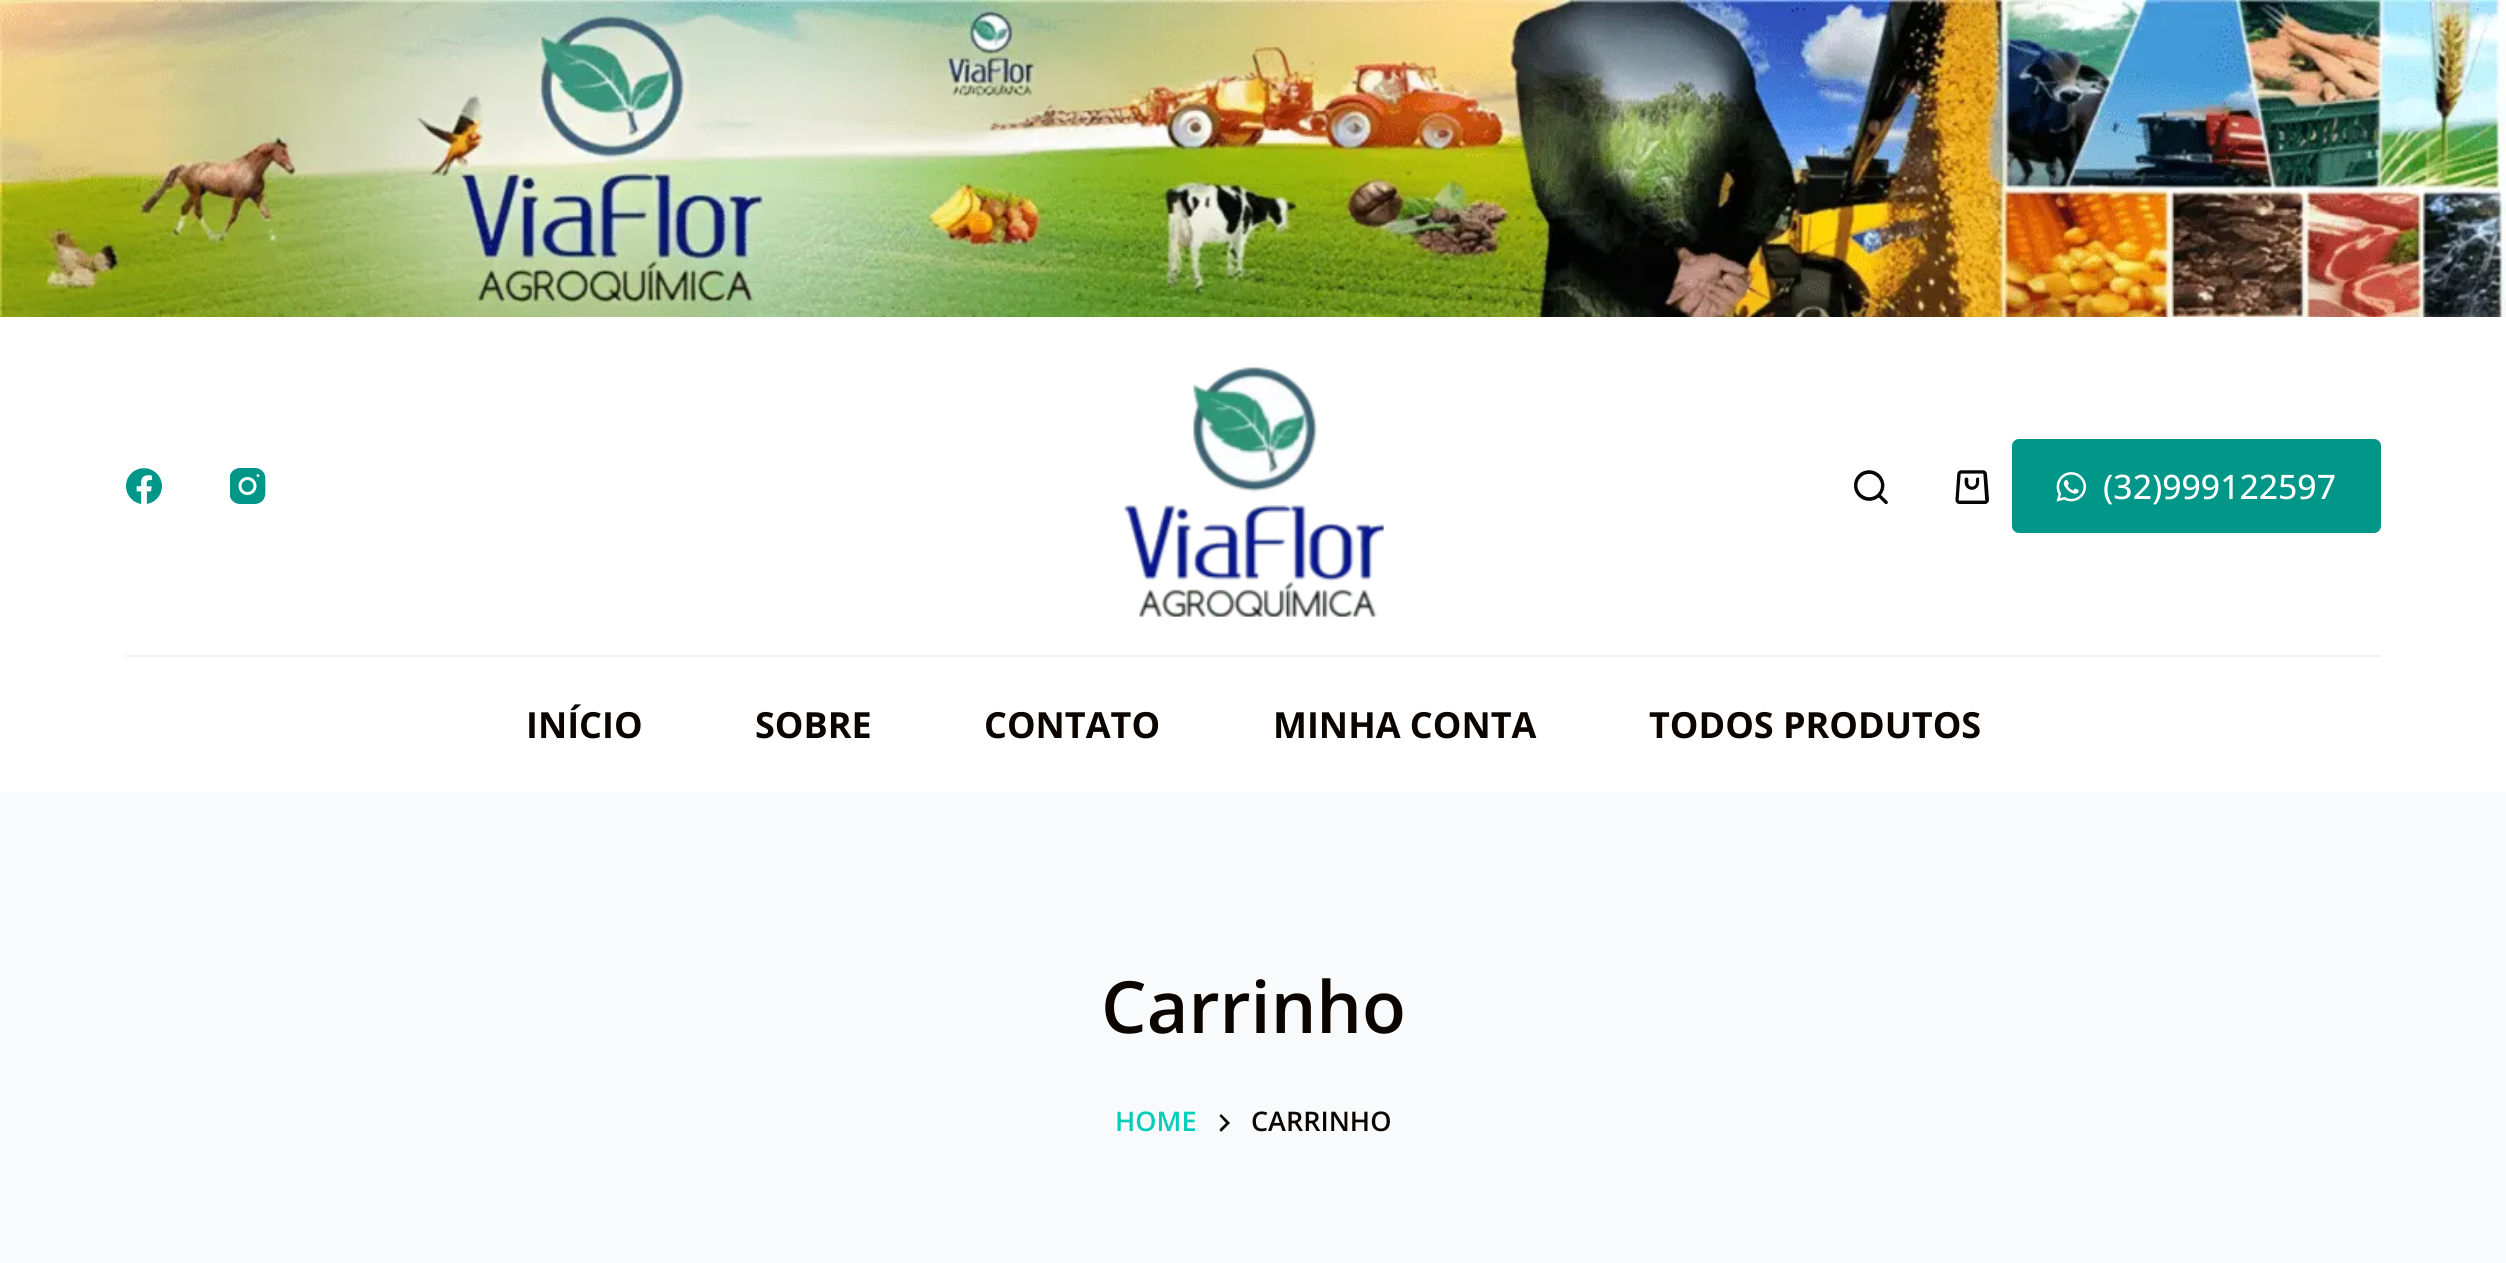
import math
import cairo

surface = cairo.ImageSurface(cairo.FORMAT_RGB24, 2506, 1263)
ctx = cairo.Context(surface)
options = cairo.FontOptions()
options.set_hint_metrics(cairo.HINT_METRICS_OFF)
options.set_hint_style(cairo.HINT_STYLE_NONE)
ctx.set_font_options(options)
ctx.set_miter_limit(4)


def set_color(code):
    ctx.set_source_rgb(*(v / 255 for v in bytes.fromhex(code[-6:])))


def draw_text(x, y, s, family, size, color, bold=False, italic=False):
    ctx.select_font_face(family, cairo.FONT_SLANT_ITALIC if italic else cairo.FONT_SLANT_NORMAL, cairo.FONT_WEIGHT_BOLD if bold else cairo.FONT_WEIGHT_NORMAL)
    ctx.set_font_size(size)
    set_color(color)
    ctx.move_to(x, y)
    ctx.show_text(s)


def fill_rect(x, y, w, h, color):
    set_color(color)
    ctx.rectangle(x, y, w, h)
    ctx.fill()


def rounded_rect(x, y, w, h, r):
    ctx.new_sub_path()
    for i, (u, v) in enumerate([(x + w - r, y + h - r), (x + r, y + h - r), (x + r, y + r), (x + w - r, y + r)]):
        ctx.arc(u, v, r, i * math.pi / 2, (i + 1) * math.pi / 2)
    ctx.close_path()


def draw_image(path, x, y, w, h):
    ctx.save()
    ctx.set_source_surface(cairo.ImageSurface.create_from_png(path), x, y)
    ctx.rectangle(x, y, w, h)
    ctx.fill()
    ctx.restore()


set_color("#ffffff")
ctx.paint()
draw_image("assets/img1.png", 0, 0, 2506, 317)
draw_image("assets/img2.png", 126, 468, 36, 36)
draw_image("assets/img3.png", 230, 468, 36, 36)
draw_image("assets/img4.png", 1124, 367, 260, 250)
draw_image("assets/img5.png", 1854, 470, 34, 34)
draw_image("assets/img6.png", 1955, 470, 34, 34)
set_color("#009688")
rounded_rect(2012, 439, 369, 94, 7)
ctx.fill()
draw_image("assets/img7.png", 2056, 472, 30, 30)
draw_text(2103, 499, "(32)999122597", "Open Sans Medium", 33.75, "#ffffff")
fill_rect(126, 655, 2255, 2, "#f2f1f1")
draw_text(526, 738, "INÍCIO", "Open Sans", 36, "#0a0500", bold=True)
draw_text(755, 738, "SOBRE", "Open Sans", 36, "#0a0500", bold=True)
draw_text(984, 738, "CONTATO", "Open Sans", 36, "#0a0500", bold=True)
draw_text(1273, 738, "MINHA CONTA", "Open Sans", 36, "#0a0500", bold=True)
draw_text(1649, 738, "TODOS PRODUTOS", "Open Sans", 36, "#0a0500", bold=True)
fill_rect(0, 792, 2506, 471, "#f9fafb")
draw_text(1101, 1033, "Carrinho", "Open Sans SemiBold", 72, "#0a0500")
draw_text(1115, 1131, "HOME", "Open Sans SemiBold", 27, "#00ceba")
set_color("#050505")
ctx.new_path()
ctx.move_to(1219.5, 1129.5)
ctx.line_to(1226, 1123)
ctx.line_to(1219.5, 1116)
ctx.line_to(1221, 1114)
ctx.line_to(1230, 1123)
ctx.line_to(1221, 1132)
ctx.close_path()
ctx.fill()
draw_text(1251, 1131, "CARRINHO", "Open Sans SemiBold", 27, "#0a0500")
surface.write_to_png("output.png")
